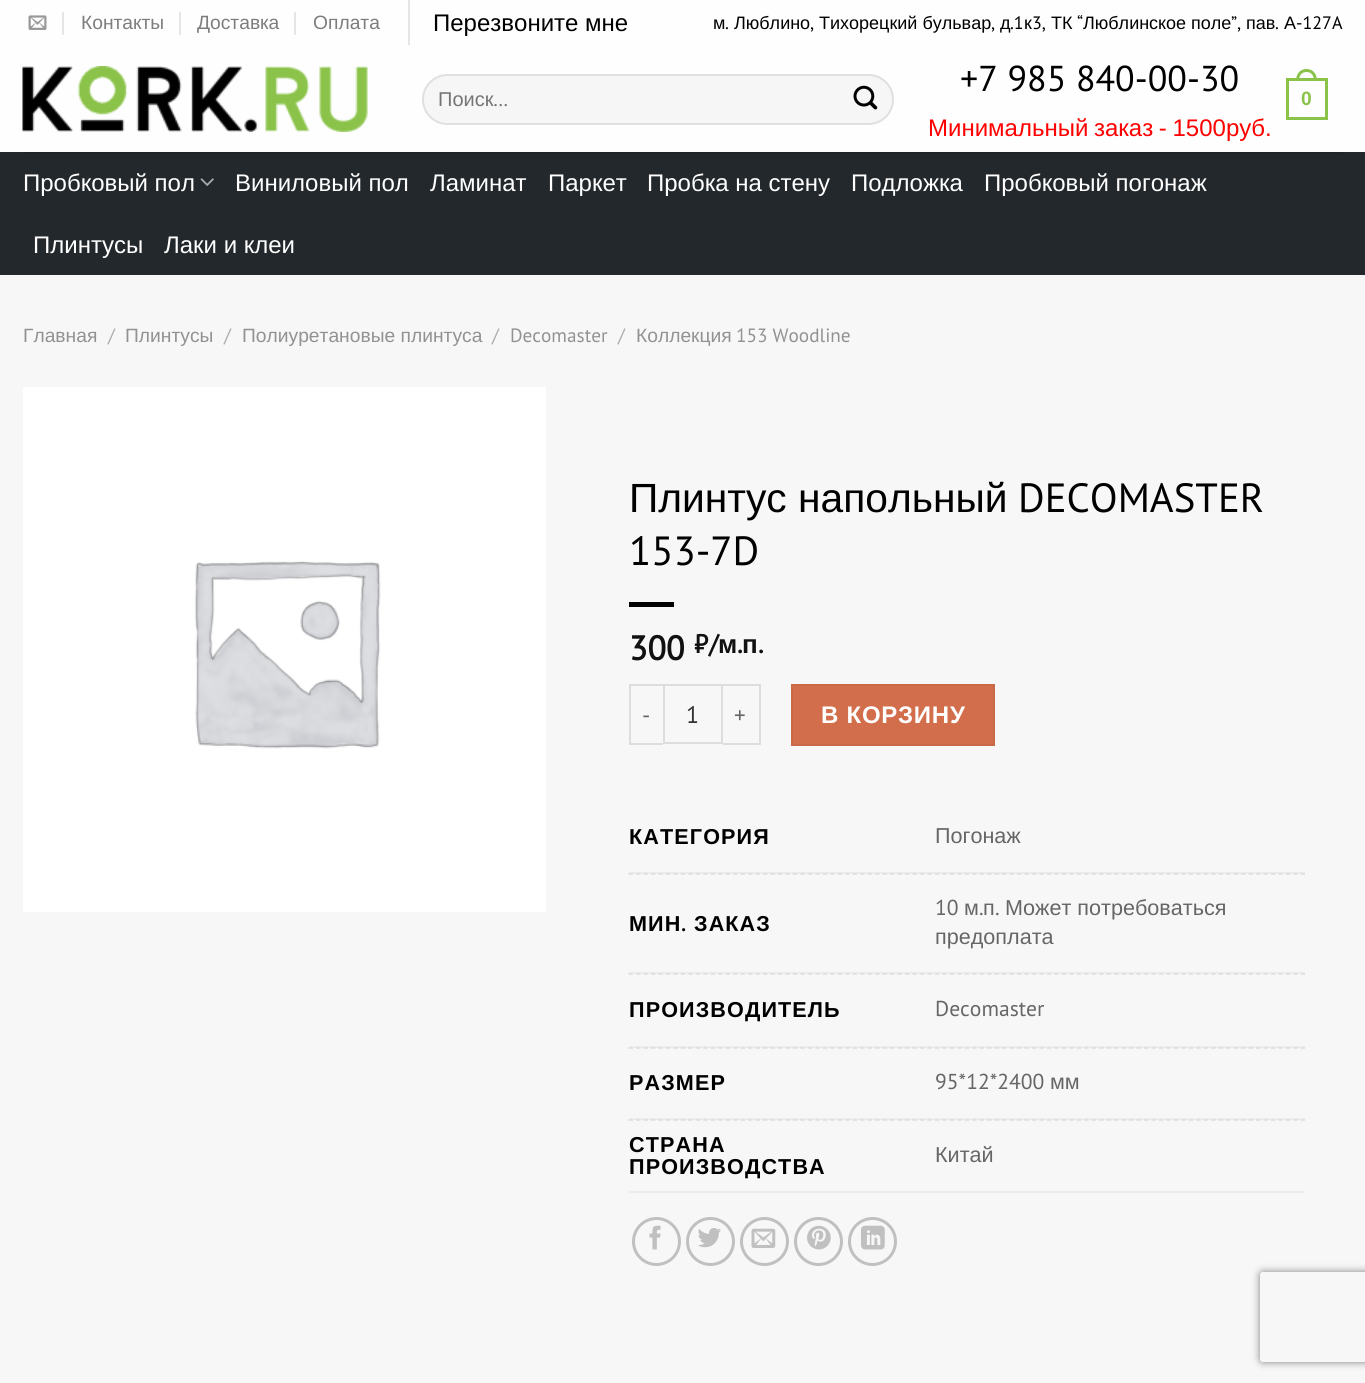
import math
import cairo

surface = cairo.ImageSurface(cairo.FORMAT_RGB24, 1365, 1383)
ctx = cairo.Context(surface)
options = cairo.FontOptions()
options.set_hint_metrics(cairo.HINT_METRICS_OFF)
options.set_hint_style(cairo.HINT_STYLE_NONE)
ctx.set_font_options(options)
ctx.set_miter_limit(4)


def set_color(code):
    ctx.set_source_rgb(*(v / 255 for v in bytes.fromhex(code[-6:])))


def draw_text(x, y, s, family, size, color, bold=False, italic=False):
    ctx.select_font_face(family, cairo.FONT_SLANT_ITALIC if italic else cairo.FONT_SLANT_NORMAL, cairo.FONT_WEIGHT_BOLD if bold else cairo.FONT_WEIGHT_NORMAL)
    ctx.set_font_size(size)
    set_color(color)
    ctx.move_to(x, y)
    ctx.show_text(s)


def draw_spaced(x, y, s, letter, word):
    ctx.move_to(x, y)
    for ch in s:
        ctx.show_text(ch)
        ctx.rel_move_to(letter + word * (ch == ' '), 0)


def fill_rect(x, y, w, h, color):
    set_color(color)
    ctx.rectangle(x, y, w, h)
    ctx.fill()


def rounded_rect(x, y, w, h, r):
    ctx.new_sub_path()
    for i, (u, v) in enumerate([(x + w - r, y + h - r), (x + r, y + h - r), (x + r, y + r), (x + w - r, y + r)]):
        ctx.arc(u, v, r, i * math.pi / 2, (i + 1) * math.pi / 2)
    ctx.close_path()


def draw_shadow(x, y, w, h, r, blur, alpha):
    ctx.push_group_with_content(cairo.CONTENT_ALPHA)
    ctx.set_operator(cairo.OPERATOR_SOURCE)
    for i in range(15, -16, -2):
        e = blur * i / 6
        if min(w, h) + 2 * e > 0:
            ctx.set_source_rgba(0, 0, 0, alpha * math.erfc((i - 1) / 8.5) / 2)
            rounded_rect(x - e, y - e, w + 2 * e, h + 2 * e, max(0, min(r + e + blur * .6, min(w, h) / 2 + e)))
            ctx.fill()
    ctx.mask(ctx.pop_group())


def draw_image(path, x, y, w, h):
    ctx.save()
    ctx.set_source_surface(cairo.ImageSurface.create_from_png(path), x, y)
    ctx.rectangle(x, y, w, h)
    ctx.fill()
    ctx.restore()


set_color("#f7f7f7")
ctx.paint()
fill_rect(0, 0, 1365, 152, "#fefefe")
draw_image("assets/img1.png", 28, 15, 19, 15)
fill_rect(62, 12, 2, 23, "#e5e5e5")
draw_text(81, 29, "Контакты", "Liberation Sans", 19.25, "#7d7d7d")
fill_rect(179, 12, 2, 23, "#e5e5e5")
draw_text(197, 29, "Доставка", "Liberation Sans", 19.25, "#7d7d7d")
fill_rect(294, 12, 2, 23, "#e5e5e5")
draw_text(313, 29, "Оплата", "Liberation Sans", 19.25, "#7d7d7d")
fill_rect(408, 0, 2, 45, "#e5e5e5")
draw_text(433, 31, "Перезвоните мне", "Liberation Sans", 24, "#000000")
draw_text(713, 29, "м", "Liberation Sans", 18, "#000000")
draw_text(725, 29, ".", "PT Sans", 18, "#000000")
draw_text(734, 29, "Люблино", "Liberation Sans", 18, "#000000")
draw_text(810, 29, ",", "PT Sans", 18, "#000000")
draw_text(819, 29, "Тихорецкий бульвар", "Liberation Sans", 18, "#000000")
draw_text(991, 29, ",", "PT Sans", 18, "#000000")
draw_text(1000, 29, "д", "Liberation Sans", 18, "#000000")
draw_text(1010, 29, ".1", "PT Sans", 18, "#000000")
draw_text(1024, 29, "к", "Liberation Sans", 18, "#000000")
draw_text(1032, 29, "3,", "PT Sans", 18, "#000000")
draw_text(1051, 29, "ТК", "Liberation Sans", 18, "#000000")
draw_text(1077, 29, "“", "PT Sans", 18, "#000000")
draw_text(1083, 29, "Люблинское поле", "Liberation Sans", 18, "#000000")
draw_text(1231, 29, "”,", "PT Sans", 18, "#000000")
draw_text(1246, 29, "пав", "Liberation Sans", 18, "#000000")
draw_text(1275, 29, ".", "PT Sans", 18, "#000000")
draw_text(1284, 29, "А", "Liberation Sans", 18, "#000000")
draw_text(1296, 29, "-127A", "PT Sans", 18, "#000000")
draw_image("assets/img2.png", 22, 66, 346, 66)
set_color("#f6f6f6")
rounded_rect(422, 74, 472, 51, 25.5)
ctx.fill()
rounded_rect(423, 75, 470, 49, 24.5)
ctx.set_source_rgba(0, 0, 0, 0.09)
ctx.stroke()
draw_text(438, 106, "Поиск", "Liberation Sans", 20, "#757575")
draw_text(493, 106, "…", "PT Sans", 20, "#757575")
draw_image("assets/img3.png", 853, 85, 25, 25)
draw_text(960, 91, "+7 985 840-00-30", "PT Sans", 36, "#000000")
ctx.select_font_face("Liberation Sans")
ctx.set_font_size(24)
set_color("#ff0000")
draw_spaced(928, 136, "Минимальный заказ - 1500руб.", 0, -1)
ctx.rectangle(1287.5, 79.5, 39, 39)
set_color("#8bc24a")
ctx.set_line_width(3)
ctx.stroke()
ctx.set_fill_rule(cairo.FILL_RULE_EVEN_ODD)
ctx.new_path()
ctx.move_to(1306.5, 69)
ctx.curve_to(1313.5, 69, 1317, 74.5, 1317, 81)
ctx.line_to(1296, 81)
ctx.curve_to(1296, 74.5, 1299.5, 69, 1306.5, 69)
ctx.close_path()
ctx.move_to(1306.5, 72)
ctx.curve_to(1312, 72, 1314, 76.5, 1314, 81)
ctx.line_to(1299, 81)
ctx.curve_to(1299, 76.5, 1301, 72, 1306.5, 72)
ctx.close_path()
ctx.fill()
draw_text(1301, 105, "0", "Liberation Sans", 19.25, "#8bc24a", bold=True)
fill_rect(0, 152, 1365, 123, "#23282c")
fill_rect(23, 152, 1320, 2, "#202428")
draw_text(23, 191, "Пробковый пол", "Liberation Sans", 24, "#ffffff")
draw_image("assets/img4.png", 200, 178, 14, 8)
draw_text(235, 191, "Виниловый пол", "Liberation Sans", 24, "#ffffff")
draw_text(430, 191, "Ламинат", "Liberation Sans", 24, "#ffffff")
draw_text(548, 191, "Паркет", "Liberation Sans", 24, "#ffffff")
draw_text(647, 191, "Пробка на стену", "Liberation Sans", 24, "#ffffff")
draw_text(851, 191, "Подложка", "Liberation Sans", 24, "#ffffff")
draw_text(984, 191, "Пробковый погонаж", "Liberation Sans", 24, "#ffffff")
draw_text(33, 253, "Плинтусы", "Liberation Sans", 24, "#ffffff")
draw_text(164, 253, "Лаки и клеи", "Liberation Sans", 24, "#ffffff")
draw_text(23, 342, "Главная", "Liberation Sans", 19.25, "#929292")
draw_text(108, 342, "/", "PT Sans", 19.25, "#acacac")
draw_text(125, 342, "Плинтусы", "Liberation Sans", 19.25, "#929292")
draw_text(224, 342, "/", "PT Sans", 19.25, "#acacac")
draw_text(242, 342, "Полиуретановые плинтуса", "Liberation Sans", 19.25, "#929292")
draw_text(492, 342, "/", "PT Sans", 19.25, "#acacac")
draw_text(510, 342, "Decomaster", "PT Sans", 19.25, "#929292")
draw_text(618, 342, "/", "PT Sans", 19.25, "#acacac")
draw_text(636, 342, "Коллекция", "Liberation Sans", 19.25, "#929292")
draw_text(736, 342, "153 Woodline", "PT Sans", 19.25, "#929292")
draw_image("assets/img5.png", 23, 387, 523, 525)
draw_text(629, 512, "Плинтус напольный", "Liberation Sans", 40.75, "#000000")
draw_text(1018, 512, "DECOMASTER", "PT Sans", 40.75, "#000000")
draw_text(629, 565, "153-7D", "PT Sans", 40.75, "#000000")
fill_rect(629, 602, 45, 5, "#000000")
draw_text(629, 660, "300", "PT Sans", 34, "#111111", bold=True)
draw_text(694, 653, "₽", "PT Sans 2", 26, "#111111", bold=True)
draw_text(709, 653, "/", "PT Sans", 26, "#111111", bold=True)
draw_text(718, 653, "м", "Liberation Sans", 26, "#111111", bold=True)
draw_text(737, 653, ".", "PT Sans", 26, "#111111", bold=True)
draw_text(742, 653, "п", "Liberation Sans", 26, "#111111", bold=True)
draw_text(758, 653, ".", "PT Sans", 26, "#111111", bold=True)
fill_rect(629, 684, 34, 2, "#dddddd")
fill_rect(629, 743, 34, 2, "#dddddd")
fill_rect(629, 684, 2, 60, "#dddddd")
ctx.select_font_face("PT Sans")
ctx.set_font_size(23)
set_color("#666666")
draw_spaced(642, 723, "-", 1, 0)
ctx.rectangle(664, 685, 58, 58)
set_color("#dddddd")
ctx.set_line_width(2)
ctx.stroke()
draw_text(686, 723, "1", "PT Sans", 24, "#333333")
fill_rect(723, 684, 38, 2, "#dddddd")
fill_rect(759, 684, 2, 60, "#dddddd")
fill_rect(723, 743, 38, 2, "#dddddd")
ctx.set_font_size(23)
set_color("#666666")
draw_spaced(734, 723, "+", 1, 0)
set_color("#d26e4b")
ctx.rectangle(792, 685, 202, 60)
ctx.fill_preserve()
set_color("#c86947")
ctx.stroke()
ctx.select_font_face("Liberation Sans", cairo.FONT_SLANT_NORMAL, cairo.FONT_WEIGHT_BOLD)
ctx.set_font_size(24)
set_color("#ffffff")
draw_spaced(821, 723, "В КОРЗИНУ", 0.75, 0)
fill_rect(629, 872, 676, 2, "#ececec")
ctx.set_font_size(21.6)
set_color("#000000")
draw_spaced(629, 844, "КАТЕГОРИЯ", 1.1, 0)
draw_text(935, 843, "Погонаж", "Liberation Sans", 21.6, "#666666")
ctx.new_path()
ctx.move_to(628.5, 874)
ctx.line_to(1305, 874)
set_color("#dddddd")
ctx.set_line_width(1.5)
ctx.set_dash([4.5, 2.97])
ctx.stroke()
fill_rect(629, 972, 676, 2, "#ececec")
ctx.select_font_face("Liberation Sans", cairo.FONT_SLANT_NORMAL, cairo.FONT_WEIGHT_BOLD)
set_color("#000000")
draw_spaced(629, 931, "МИН", 1.1, 0)
ctx.select_font_face("PT Sans", cairo.FONT_SLANT_NORMAL, cairo.FONT_WEIGHT_BOLD)
draw_spaced(681, 931, ".", 1.1, 0)
ctx.select_font_face("Liberation Sans", cairo.FONT_SLANT_NORMAL, cairo.FONT_WEIGHT_BOLD)
draw_spaced(694, 931, "ЗАКАЗ", 1.1, 0)
draw_text(935, 915, "10", "PT Sans", 21.6, "#666666")
draw_text(964, 915, "м", "Liberation Sans", 21.6, "#666666")
draw_text(979, 915, ".", "PT Sans", 21.6, "#666666")
draw_text(983, 915, "п", "Liberation Sans", 21.6, "#666666")
draw_text(995, 915, ".", "PT Sans", 21.6, "#666666")
draw_text(1005, 915, "Может потребоваться", "Liberation Sans", 21.6, "#666666")
draw_text(935, 944, "предоплата", "Liberation Sans", 21.6, "#666666")
ctx.new_path()
ctx.move_to(628.5, 974)
ctx.line_to(1305, 974)
set_color("#dddddd")
ctx.stroke()
fill_rect(629, 1046, 676, 2, "#ececec")
ctx.select_font_face("Liberation Sans", cairo.FONT_SLANT_NORMAL, cairo.FONT_WEIGHT_BOLD)
set_color("#000000")
draw_spaced(629, 1017, "ПРОИЗВОДИТЕЛЬ", 1.1, 0)
draw_text(935, 1016, "Decomaster", "PT Sans", 21.6, "#666666")
ctx.new_path()
ctx.move_to(628.5, 1048)
ctx.line_to(1305, 1048)
set_color("#dddddd")
ctx.stroke()
fill_rect(629, 1118, 676, 2, "#ececec")
ctx.select_font_face("Liberation Sans", cairo.FONT_SLANT_NORMAL, cairo.FONT_WEIGHT_BOLD)
set_color("#000000")
draw_spaced(629, 1090, "РАЗМЕР", 1.1, 0)
draw_text(935, 1089, "95*12*2400", "PT Sans", 21.6, "#666666")
draw_text(1050, 1089, "мм", "Liberation Sans", 21.6, "#666666")
ctx.new_path()
ctx.move_to(628.5, 1120)
ctx.line_to(1305, 1120)
set_color("#dddddd")
ctx.stroke()
fill_rect(629, 1191, 676, 2, "#ececec")
ctx.select_font_face("Liberation Sans", cairo.FONT_SLANT_NORMAL, cairo.FONT_WEIGHT_BOLD)
set_color("#000000")
draw_spaced(629, 1152, "СТРАНА", 1.1, 0)
draw_spaced(629, 1174, "ПРОИЗВОДСТВА", 1.1, 0)
draw_text(935, 1162, "Китай", "Liberation Sans", 21.6, "#666666")
ctx.new_path()
ctx.arc(656.5, 1241.5, 23, 0, 2 * math.pi)
set_color("#c0c0c0")
ctx.set_line_width(3)
ctx.set_dash([])
ctx.stroke()
draw_image("assets/img6.png", 649, 1225, 12, 25)
ctx.arc(710.5, 1241.5, 23, 0, 2 * math.pi)
ctx.stroke()
draw_image("assets/img7.png", 698, 1228, 23, 20)
ctx.arc(764.5, 1241.5, 23, 0, 2 * math.pi)
ctx.stroke()
draw_image("assets/img8.png", 751, 1228, 25, 20)
ctx.arc(818.5, 1241.5, 23, 0, 2 * math.pi)
ctx.stroke()
draw_image("assets/img9.png", 807, 1225, 24, 25)
ctx.arc(872.5, 1241.5, 23, 0, 2 * math.pi)
ctx.stroke()
draw_image("assets/img10.png", 861, 1225, 24, 25)
ctx.save()
ctx.new_path()
ctx.move_to(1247, 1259)
ctx.line_to(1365, 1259)
ctx.line_to(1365, 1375)
ctx.line_to(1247, 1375)
ctx.close_path()
ctx.move_to(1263, 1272)
ctx.line_to(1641, 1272)
ctx.curve_to(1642.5, 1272, 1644, 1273.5, 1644, 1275)
ctx.line_to(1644, 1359)
ctx.curve_to(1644, 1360.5, 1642.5, 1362, 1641, 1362)
ctx.line_to(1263, 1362)
ctx.curve_to(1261.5, 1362, 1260, 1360.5, 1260, 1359)
ctx.line_to(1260, 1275)
ctx.curve_to(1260, 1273.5, 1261.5, 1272, 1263, 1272)
ctx.close_path()
ctx.clip()
set_color("#808080")
draw_shadow(1260, 1272, 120, 90, 3, 4, 1)
ctx.restore()
surface.write_to_png("output.png")
